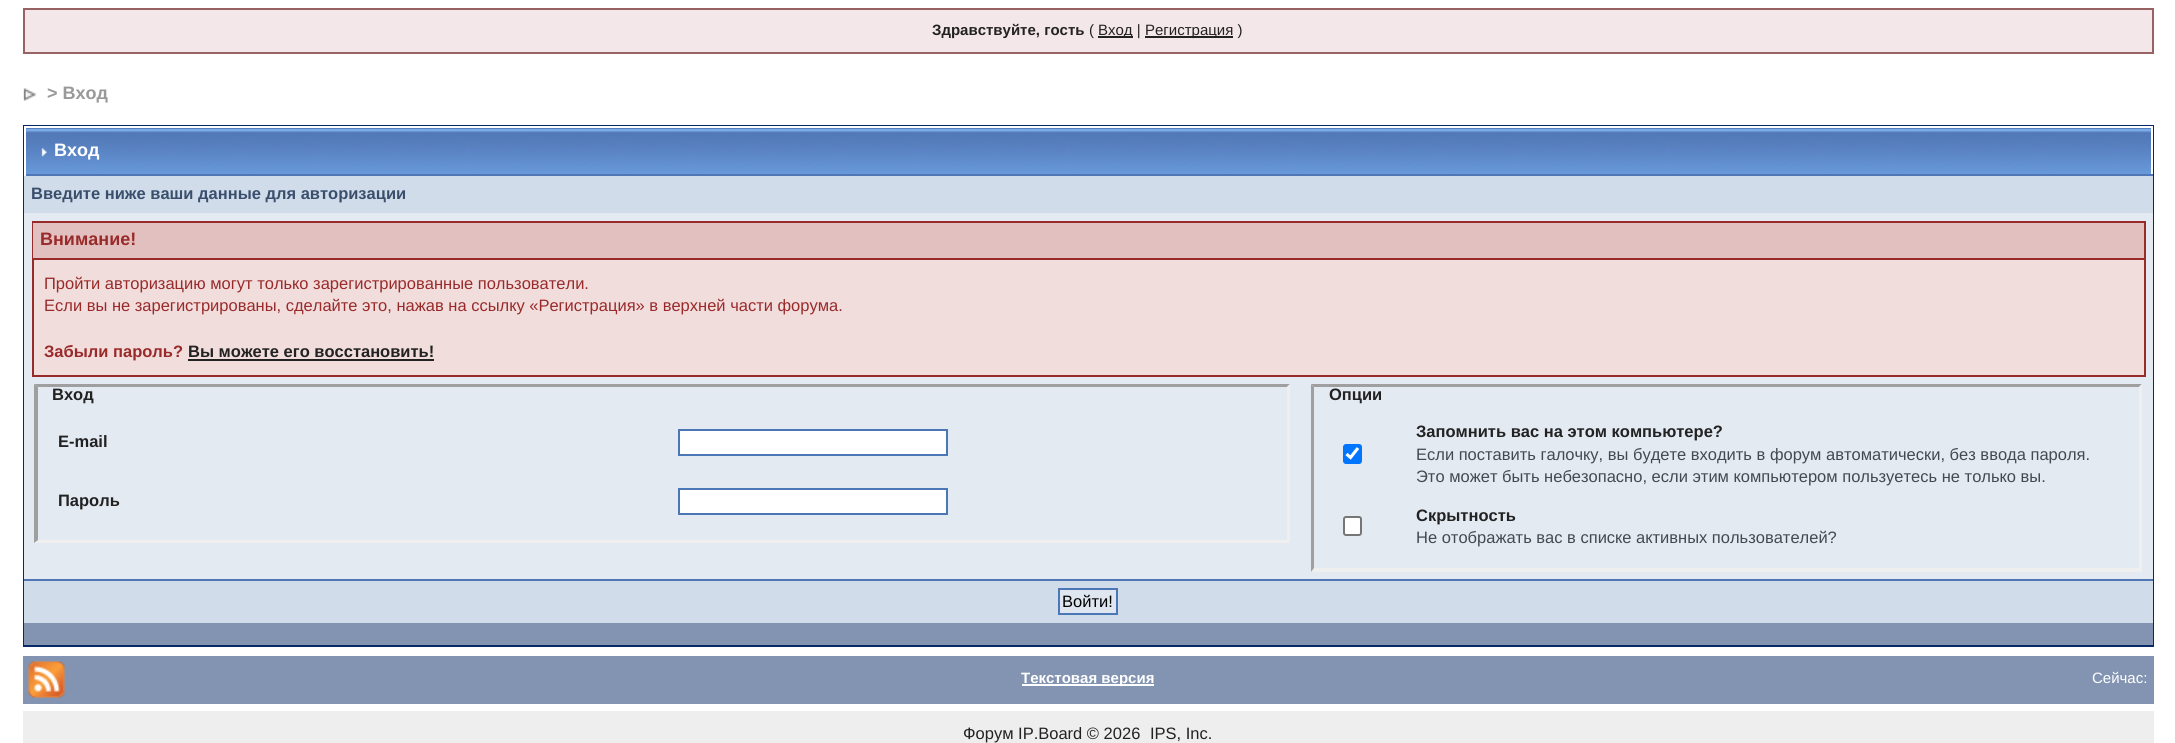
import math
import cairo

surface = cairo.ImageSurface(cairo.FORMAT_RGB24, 2175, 743)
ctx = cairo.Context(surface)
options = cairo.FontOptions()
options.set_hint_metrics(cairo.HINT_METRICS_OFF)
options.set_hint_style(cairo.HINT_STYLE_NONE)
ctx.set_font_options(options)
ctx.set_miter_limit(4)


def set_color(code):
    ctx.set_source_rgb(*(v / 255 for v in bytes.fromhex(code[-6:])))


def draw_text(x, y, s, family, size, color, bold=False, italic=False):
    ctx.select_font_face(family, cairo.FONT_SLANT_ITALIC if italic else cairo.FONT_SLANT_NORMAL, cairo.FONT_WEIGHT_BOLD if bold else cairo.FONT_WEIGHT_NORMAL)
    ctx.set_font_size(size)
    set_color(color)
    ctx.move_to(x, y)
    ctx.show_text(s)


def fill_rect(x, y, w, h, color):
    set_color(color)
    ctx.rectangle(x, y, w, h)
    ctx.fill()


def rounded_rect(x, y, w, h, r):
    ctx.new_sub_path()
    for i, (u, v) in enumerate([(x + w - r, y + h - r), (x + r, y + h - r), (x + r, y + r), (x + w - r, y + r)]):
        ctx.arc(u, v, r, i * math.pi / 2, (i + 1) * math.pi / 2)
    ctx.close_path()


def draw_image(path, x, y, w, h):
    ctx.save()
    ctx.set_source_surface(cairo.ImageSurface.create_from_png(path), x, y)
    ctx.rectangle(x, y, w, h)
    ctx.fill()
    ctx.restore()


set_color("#ffffff")
ctx.paint()
set_color("#f4e7ea")
ctx.rectangle(24, 9, 2129, 44)
ctx.fill_preserve()
set_color("#986265")
ctx.stroke()
draw_text(932, 35, "Здравствуйте, гость", "Liberation Sans", 15, "#222222", bold=True)
draw_text(1089, 35, "(", "Liberation Sans", 15, "#222222")
fill_rect(1098, 36, 35, 2, "#222222")
draw_text(1098, 35, "Вход |", "Liberation Sans", 15, "#222222")
fill_rect(1145, 36, 88, 2, "#222222")
draw_text(1145, 35, "Регистрация )", "Liberation Sans", 15, "#222222")
draw_image("assets/img1.png", 23, 88, 14, 13)
draw_text(47, 99, "> Вход", "Liberation Sans", 18, "#999999", bold=True)
ctx.rectangle(24, 126, 2129, 520)
set_color("#072a66")
ctx.stroke()
draw_image("assets/img2.png", 26, 128, 2125, 46)
fill_rect(24, 126, 2129, 2, "#ffffff")
fill_rect(2152, 126, 1, 50, "#ffffff")
fill_rect(24, 174, 2129, 2, "#5176b5")
fill_rect(24, 126, 2, 50, "#ffffff")
draw_image("assets/img3.png", 41, 148, 6, 9)
draw_text(54, 156, "Вход", "Liberation Sans", 18, "#ffffff", bold=True)
fill_rect(24, 213, 2129, 164, "#e4eaf2")
fill_rect(24, 176, 2129, 37, "#d1dceb")
draw_text(31, 199, "Введите ниже ваши данные для авторизации", "Liberation Sans", 16.5, "#3a4f6c", bold=True)
fill_rect(34, 260, 2110, 115, "#f2dddd")
fill_rect(2144, 221, 2, 156, "#992a2a")
fill_rect(32, 375, 2113, 2, "#992a2a")
fill_rect(32, 221, 2, 156, "#992a2a")
fill_rect(33, 223, 2111, 35, "#e3c0c0")
fill_rect(33, 221, 2111, 2, "#992a2a")
fill_rect(33, 258, 2111, 2, "#992a2a")
draw_text(40, 245, "Внимание!", "Liberation Sans", 18, "#992a2a", bold=True)
draw_text(44, 289, "Пройти авторизацию могут только зарегистрированные пользователи.", "Liberation Sans", 16.5, "#992a2a")
draw_text(44, 311, "Если вы не зарегистрированы, сделайте это, нажав на ссылку «Регистрация» в верхней части форума.", "Liberation Sans", 16.5, "#992a2a")
draw_text(44, 357, "Забыли пароль?", "Liberation Sans", 16.5, "#992a2a", bold=True)
draw_text(188, 357, "Вы можете его восстановить!", "Liberation Sans", 16.5, "#222222", bold=True)
fill_rect(188, 359, 246, 2, "#222222")
fill_rect(24, 377, 2129, 202, "#e4eaf2")
set_color("#9f9f9f")
ctx.new_path()
ctx.move_to(34, 384)
ctx.line_to(1290, 384)
ctx.line_to(1287, 387)
ctx.line_to(38, 387)
ctx.close_path()
ctx.fill()
set_color("#efefef")
ctx.new_path()
ctx.move_to(1290, 384)
ctx.line_to(1290, 543)
ctx.line_to(1287, 540)
ctx.line_to(1287, 387)
ctx.close_path()
ctx.fill()
ctx.new_path()
ctx.move_to(1290, 543)
ctx.line_to(34, 543)
ctx.line_to(38, 540)
ctx.line_to(1287, 540)
ctx.close_path()
ctx.fill()
set_color("#9f9f9f")
ctx.new_path()
ctx.move_to(34, 543)
ctx.line_to(34, 384)
ctx.line_to(38, 387)
ctx.line_to(38, 540)
ctx.close_path()
ctx.fill()
draw_text(52, 400, "Вход", "Liberation Sans", 16.5, "#222222", bold=True)
draw_text(58, 447, "E-mail", "Liberation Sans", 16.5, "#222222", bold=True)
set_color("#ffffff")
ctx.rectangle(679, 430, 268, 25)
ctx.fill_preserve()
set_color("#4c77b6")
ctx.stroke()
draw_text(58, 506, "Пароль", "Liberation Sans", 16.5, "#222222", bold=True)
set_color("#ffffff")
ctx.rectangle(679, 489, 268, 25)
ctx.fill_preserve()
set_color("#4c77b6")
ctx.stroke()
set_color("#9f9f9f")
ctx.new_path()
ctx.move_to(1311, 384)
ctx.line_to(2142, 384)
ctx.line_to(2139, 387)
ctx.line_to(1314, 387)
ctx.close_path()
ctx.fill()
set_color("#efefef")
ctx.new_path()
ctx.move_to(2142, 384)
ctx.line_to(2142, 572)
ctx.line_to(2139, 568)
ctx.line_to(2139, 387)
ctx.close_path()
ctx.fill()
ctx.new_path()
ctx.move_to(2142, 572)
ctx.line_to(1311, 572)
ctx.line_to(1314, 568)
ctx.line_to(2139, 568)
ctx.close_path()
ctx.fill()
set_color("#9f9f9f")
ctx.new_path()
ctx.move_to(1311, 572)
ctx.line_to(1311, 384)
ctx.line_to(1314, 387)
ctx.line_to(1314, 568)
ctx.close_path()
ctx.fill()
draw_text(1329, 400, "Опции", "Liberation Sans", 16.5, "#222222", bold=True)
set_color("#0075ff")
rounded_rect(1343, 444, 19, 20, 3)
ctx.fill()
ctx.new_path()
ctx.move_to(1346.5, 454)
ctx.line_to(1350.5, 457.5)
ctx.line_to(1358, 448)
set_color("#ffffff")
ctx.set_line_width(3.1)
ctx.stroke()
draw_text(1416, 437, "Запомнить вас на этом компьютере?", "Liberation Sans", 16.5, "#222222", bold=True)
draw_text(1416, 460, "Если поставить галочку, вы будете входить в форум автоматически, без ввода пароля.", "Liberation Sans", 16.5, "#434951")
draw_text(1416, 482, "Это может быть небезопасно, если этим компьютером пользуетесь не только вы.", "Liberation Sans", 16.5, "#434951")
set_color("#ffffff")
rounded_rect(1344, 517, 17, 18, 2)
ctx.fill_preserve()
set_color("#767676")
ctx.set_line_width(2)
ctx.stroke()
draw_text(1416, 521, "Скрытность", "Liberation Sans", 16.5, "#222222", bold=True)
draw_text(1416, 543, "Не отображать вас в списке активных пользователей?", "Liberation Sans", 16.5, "#434951")
fill_rect(24, 581, 2129, 42, "#d1dceb")
fill_rect(24, 579, 2129, 2, "#5176b5")
set_color("#dfe6ef")
ctx.rectangle(1059, 589, 58, 25)
ctx.fill_preserve()
set_color("#4c77b6")
ctx.stroke()
draw_text(1062, 607, "Войти!", "Liberation Sans", 16.5, "#000000")
fill_rect(24, 623, 2129, 22, "#8394b2")
fill_rect(23, 656, 2131, 48, "#8394b2")
draw_image("assets/img4.png", 28, 661, 37, 37)
fill_rect(1022, 684, 132, 2, "#ffffff")
draw_text(1021, 683, "Текстовая версия", "Liberation Sans", 15, "#ffffff", bold=True)
draw_text(2092, 683, "Сейчас:", "Liberation Sans", 15, "#ffffff")
fill_rect(23, 711, 2131, 32, "#eeeeee")
draw_text(963, 739, "Форум IP.Board © 2026", "Liberation Sans", 16.5, "#222222")
draw_text(1150, 739, "IPS, Inc.", "Liberation Sans", 16.5, "#222222")
surface.write_to_png("output.png")
